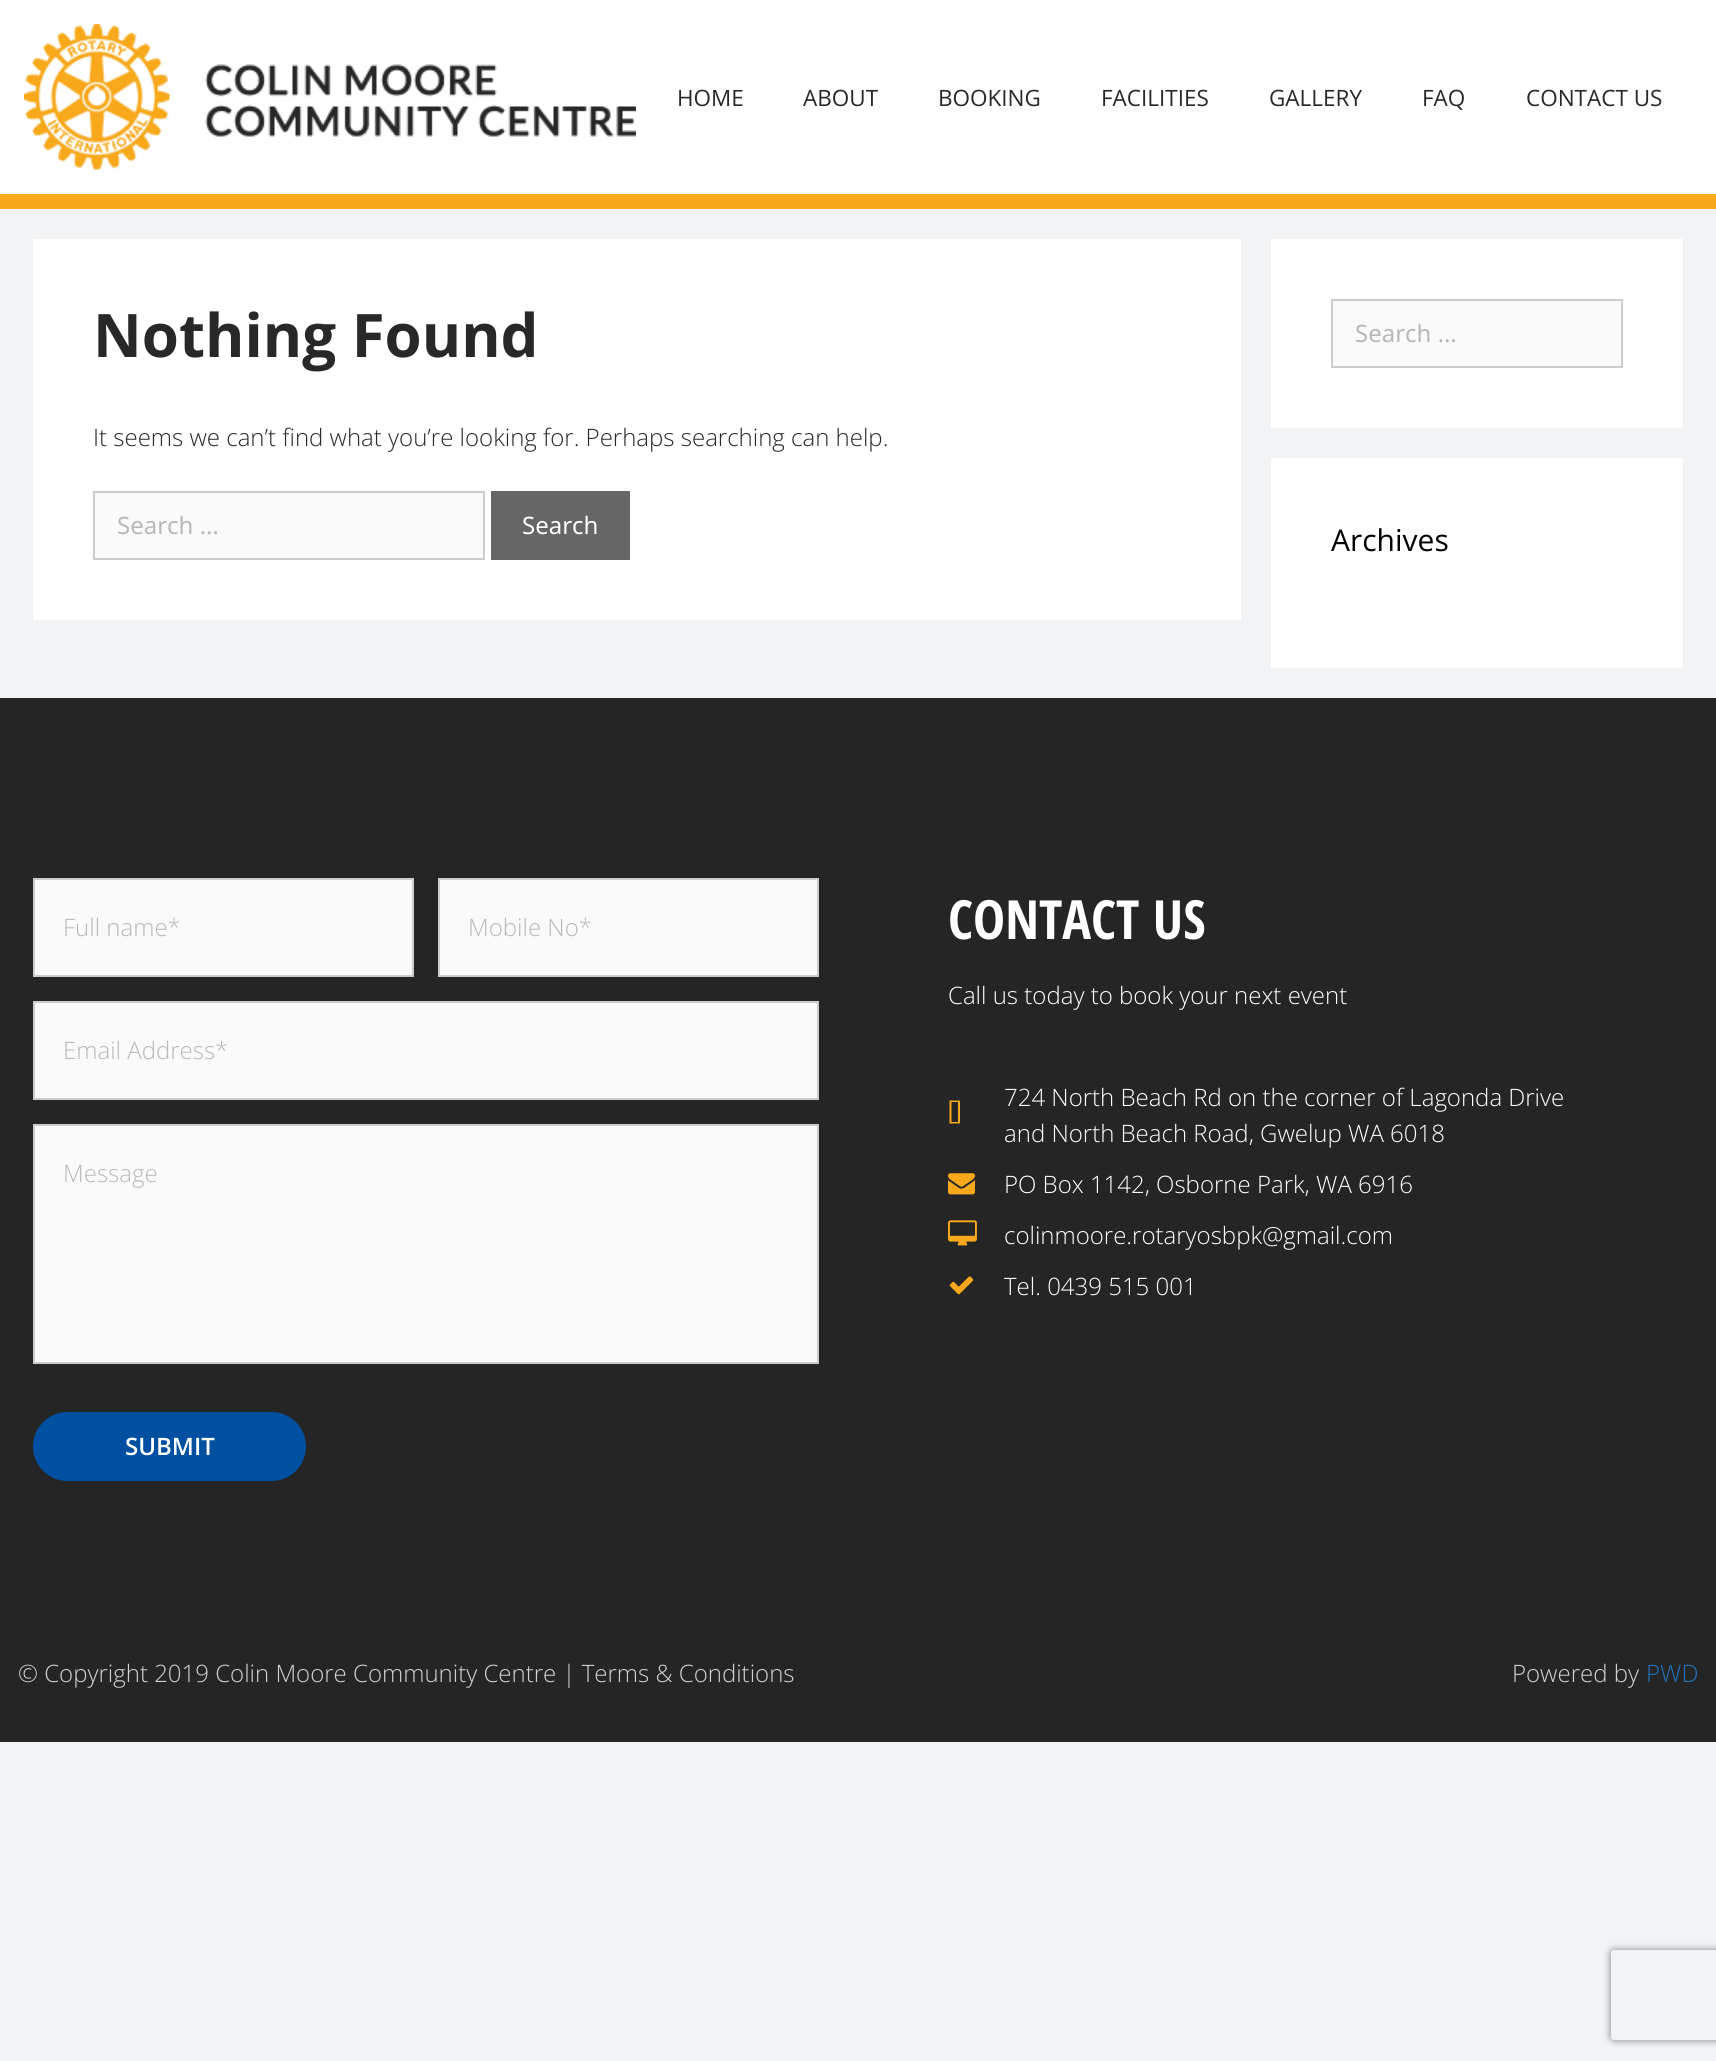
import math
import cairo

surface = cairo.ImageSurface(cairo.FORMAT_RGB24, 1716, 2061)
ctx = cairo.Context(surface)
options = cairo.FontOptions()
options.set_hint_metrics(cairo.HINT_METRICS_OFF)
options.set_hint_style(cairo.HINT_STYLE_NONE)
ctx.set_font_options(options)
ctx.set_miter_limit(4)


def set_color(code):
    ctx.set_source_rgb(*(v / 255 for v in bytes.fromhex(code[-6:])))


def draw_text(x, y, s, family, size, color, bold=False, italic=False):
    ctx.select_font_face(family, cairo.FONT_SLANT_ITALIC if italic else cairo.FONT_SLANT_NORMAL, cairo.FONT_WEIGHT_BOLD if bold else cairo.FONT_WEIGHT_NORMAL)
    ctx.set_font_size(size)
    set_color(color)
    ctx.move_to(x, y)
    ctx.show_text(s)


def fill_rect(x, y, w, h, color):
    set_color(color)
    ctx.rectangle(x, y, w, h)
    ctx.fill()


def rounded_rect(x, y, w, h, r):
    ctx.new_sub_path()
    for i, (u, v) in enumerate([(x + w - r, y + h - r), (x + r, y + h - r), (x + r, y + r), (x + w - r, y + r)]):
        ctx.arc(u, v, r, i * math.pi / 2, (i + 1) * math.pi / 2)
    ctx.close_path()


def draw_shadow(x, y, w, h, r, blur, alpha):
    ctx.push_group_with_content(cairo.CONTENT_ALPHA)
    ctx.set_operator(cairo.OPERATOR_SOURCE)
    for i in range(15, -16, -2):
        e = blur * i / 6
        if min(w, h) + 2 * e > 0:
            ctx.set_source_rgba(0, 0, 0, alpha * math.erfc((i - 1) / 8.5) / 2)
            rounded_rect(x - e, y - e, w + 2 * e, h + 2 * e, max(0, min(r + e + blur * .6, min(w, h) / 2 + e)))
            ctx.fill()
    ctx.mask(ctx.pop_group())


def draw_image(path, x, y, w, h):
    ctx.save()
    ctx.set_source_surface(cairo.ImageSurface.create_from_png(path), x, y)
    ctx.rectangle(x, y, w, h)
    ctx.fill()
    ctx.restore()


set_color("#f1f3f4")
ctx.paint()
fill_rect(0, 0, 1716, 194, "#ffffff")
fill_rect(0, 194, 1716, 15, "#f7a81b")
draw_image("assets/img1.png", 24, 24, 612, 146)
draw_text(677, 106, "HOME", "Open Sans", 22.5, "#282828")
draw_text(803, 106, "ABOUT", "Open Sans", 22.5, "#282828")
draw_text(938, 106, "BOOKING", "Open Sans", 22.5, "#282828")
draw_text(1101, 106, "FACILITIES", "Open Sans", 22.5, "#282828")
draw_text(1269, 106, "GALLERY", "Open Sans", 22.5, "#282828")
draw_text(1422, 106, "FAQ", "Open Sans", 22.5, "#282828")
draw_text(1526, 106, "CONTACT US", "Open Sans", 22.5, "#282828")
fill_rect(33, 239, 1208, 381, "#ffffff")
draw_text(93, 357, "Nothing Found", "Open Sans", 60, "#282828", bold=True)
draw_text(93, 446, "It seems we can’t find what you’re looking for. Perhaps searching can help.", "Open Sans Light", 24, "#282828")
set_color("#fafafa")
ctx.rectangle(94, 492, 390, 67)
ctx.fill_preserve()
set_color("#cccccc")
ctx.stroke()
draw_text(117, 534, "Search …", "Noto Sans", 24, "#b8b8b8")
fill_rect(491, 491, 139, 69, "#666666")
draw_text(522, 534, "Search", "Noto Sans", 24, "#ffffff")
fill_rect(1271, 239, 412, 189, "#ffffff")
set_color("#fafafa")
ctx.rectangle(1332, 300, 290, 67)
ctx.fill_preserve()
set_color("#cccccc")
ctx.stroke()
draw_text(1355, 342, "Search …", "Noto Sans", 24, "#b8b8b8")
fill_rect(1271, 458, 412, 210, "#ffffff")
draw_text(1331, 551, "Archives", "Open Sans", 30, "#000000")
fill_rect(0, 698, 1716, 1044, "#252525")
set_color("#fafafa")
ctx.rectangle(34, 879, 379, 97)
ctx.fill_preserve()
set_color("#cccccc")
ctx.stroke()
draw_text(63, 936, "Full name*", "Open Sans Light", 24, "#b8b8b8")
set_color("#fafafa")
ctx.rectangle(439, 879, 379, 97)
ctx.fill_preserve()
set_color("#cccccc")
ctx.stroke()
draw_text(468, 936, "Mobile No*", "Open Sans Light", 24, "#b8b8b8")
set_color("#fafafa")
ctx.rectangle(34, 1002, 784, 97)
ctx.fill_preserve()
set_color("#cccccc")
ctx.stroke()
draw_text(63, 1059, "Email Address*", "Open Sans Light", 24, "#b8b8b8")
set_color("#fafafa")
ctx.rectangle(34, 1125, 784, 238)
ctx.fill_preserve()
set_color("#cccccc")
ctx.stroke()
draw_text(63, 1182, "Message", "Open Sans Light", 24, "#b8b8b8")
ctx.save()
ctx.set_fill_rule(cairo.FILL_RULE_EVEN_ODD)
ctx.new_path()
ctx.move_to(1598, 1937)
ctx.line_to(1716, 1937)
ctx.line_to(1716, 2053)
ctx.line_to(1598, 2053)
ctx.close_path()
ctx.move_to(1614, 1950)
ctx.line_to(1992, 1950)
ctx.curve_to(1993.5, 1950, 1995, 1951.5, 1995, 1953)
ctx.line_to(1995, 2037)
ctx.curve_to(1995, 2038.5, 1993.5, 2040, 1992, 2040)
ctx.line_to(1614, 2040)
ctx.curve_to(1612.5, 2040, 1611, 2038.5, 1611, 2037)
ctx.line_to(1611, 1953)
ctx.curve_to(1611, 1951.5, 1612.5, 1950, 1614, 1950)
ctx.close_path()
ctx.clip()
set_color("#808080")
draw_shadow(1611, 1950, 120, 90, 3, 4, 1)
ctx.restore()
set_color("#0050a2")
rounded_rect(33, 1412, 273, 69, 34.5)
ctx.fill()
draw_text(125, 1455, "SUBMIT", "Open Sans SemiBold", 24, "#ffffff")
draw_text(948, 939, "CONTACT US", "Open Sans Condensed", 54, "#ffffff", bold=True)
draw_text(948, 1004, "Call us today to book your next event", "Open Sans Light", 24, "#ffffff")
set_color("#f7a81b")
ctx.new_path()
ctx.move_to(951.5, 1122)
ctx.line_to(958, 1122)
ctx.line_to(958, 1102)
ctx.line_to(951.5, 1102)
ctx.close_path()
ctx.move_to(949.5, 1123.5)
ctx.line_to(949.5, 1100.5)
ctx.line_to(960, 1100.5)
ctx.line_to(960, 1123.5)
ctx.close_path()
ctx.fill()
draw_text(1004, 1106, "724 North Beach Rd on the corner of Lagonda Drive", "Open Sans Light", 24, "#ffffff")
draw_text(1004, 1142, "and North Beach Road, Gwelup WA 6018", "Open Sans Light", 24, "#ffffff")
draw_image("assets/img2.png", 948, 1173, 27, 22)
draw_text(1004, 1193, "PO Box 1142, Osborne Park, WA 6916", "Open Sans Light", 24, "#ffffff")
draw_image("assets/img3.png", 948, 1220, 29, 26)
draw_text(1004, 1244, "colinmoore.rotaryosbpk@gmail.com", "Open Sans Light", 24, "#ffffff")
draw_image("assets/img4.png", 949, 1276, 25, 19)
draw_text(1004, 1295, "Tel. 0439 515 001", "Open Sans Light", 24, "#ffffff")
draw_text(18, 1682, "© Copyright 2019 Colin Moore Community Centre | Terms & Conditions", "Open Sans Light", 24, "#d3d3d3")
draw_text(1512, 1682, "Powered by", "Open Sans Light", 24, "#d3d3d3")
draw_text(1646, 1682, "PWD", "Open Sans Light", 24, "#1e73be")
surface.write_to_png("output.png")
